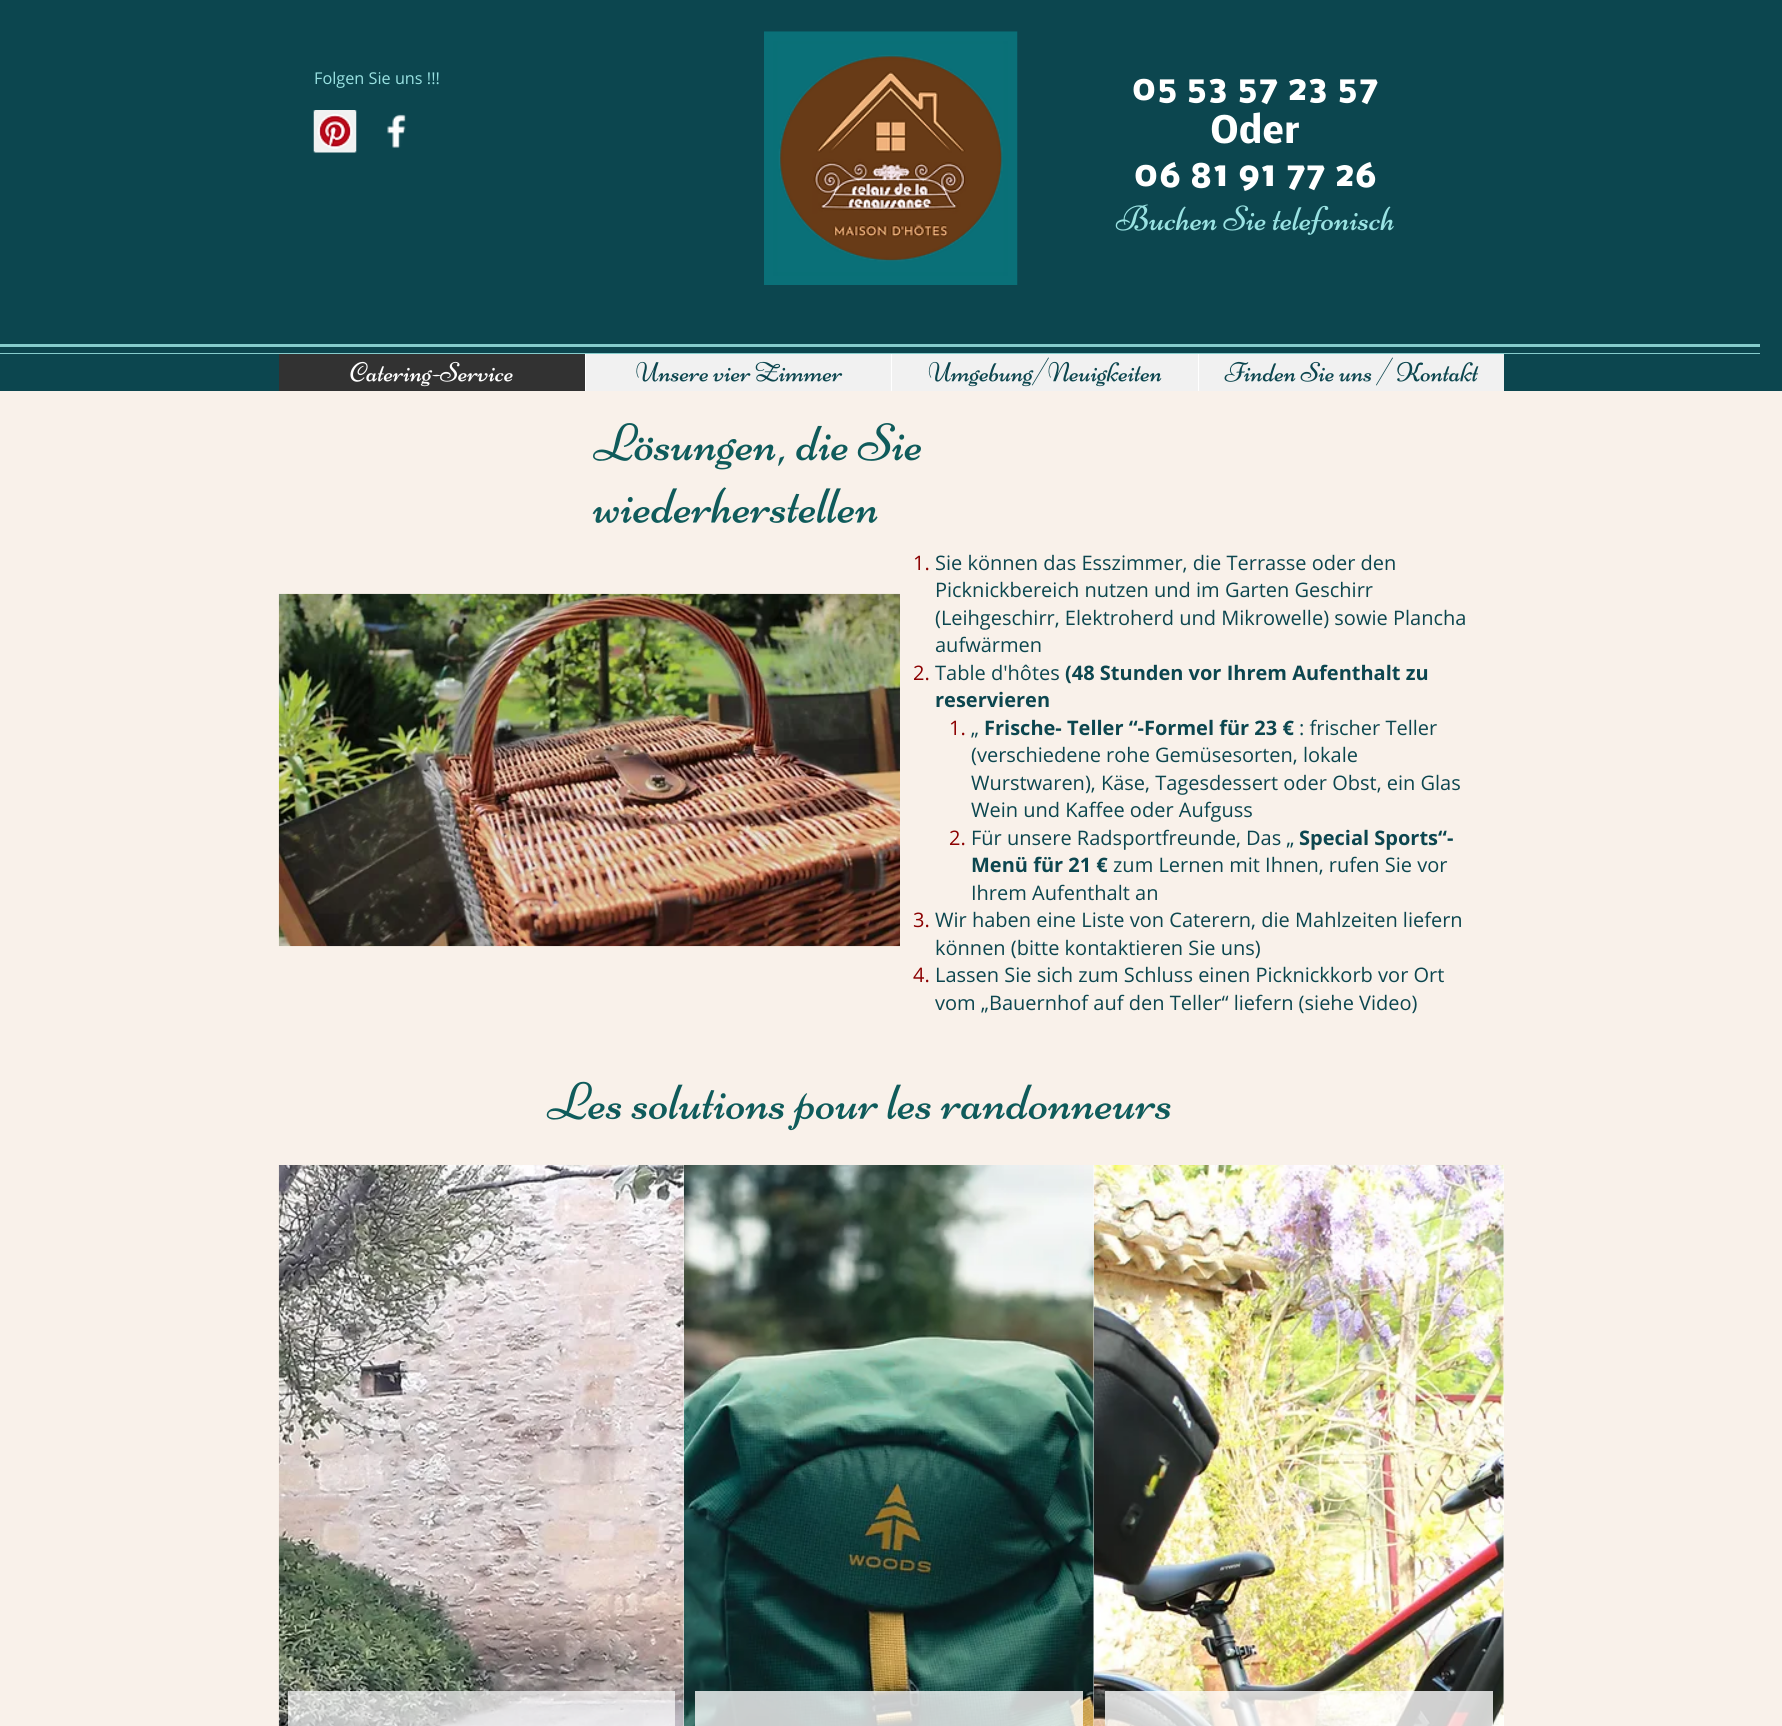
import math
import cairo

surface = cairo.ImageSurface(cairo.FORMAT_RGB24, 1782, 1726)
ctx = cairo.Context(surface)
options = cairo.FontOptions()
options.set_hint_metrics(cairo.HINT_METRICS_OFF)
options.set_hint_style(cairo.HINT_STYLE_NONE)
ctx.set_font_options(options)
ctx.set_miter_limit(4)


def set_color(code):
    ctx.set_source_rgb(*(v / 255 for v in bytes.fromhex(code[-6:])))


def draw_text(x, y, s, family, size, color, bold=False, italic=False):
    ctx.select_font_face(family, cairo.FONT_SLANT_ITALIC if italic else cairo.FONT_SLANT_NORMAL, cairo.FONT_WEIGHT_BOLD if bold else cairo.FONT_WEIGHT_NORMAL)
    ctx.set_font_size(size)
    set_color(color)
    ctx.move_to(x, y)
    ctx.show_text(s)


def fill_rect(x, y, w, h, color):
    set_color(color)
    ctx.rectangle(x, y, w, h)
    ctx.fill()


def draw_image(path, x, y, w, h):
    ctx.save()
    ctx.set_source_surface(cairo.ImageSurface.create_from_png(path), x, y)
    ctx.rectangle(x, y, w, h)
    ctx.fill()
    ctx.restore()


set_color("#f9f1ea")
ctx.paint()
fill_rect(0, 0, 1782, 391, "#0c464f")
draw_text(314, 84, "Folgen Sie uns !!!", "Open Sans", 16.25, "#99e2e2")
draw_image("assets/img1.png", 764, 31, 254, 254)
draw_text(1131, 100, "05 53 57 23 57", "Nobile", 35, "#ffffff", bold=True)
draw_text(1210, 143, "Oder", "Nobile", 35, "#ffffff", bold=True)
draw_text(1133, 186, "06 81 91 77 26", "Nobile", 35, "#ffffff", bold=True)
draw_image("assets/img2.png", 1115, 204, 279, 31)
draw_image("assets/img3.png", 313, 110, 44, 43)
draw_image("assets/img4.png", 387, 114, 19, 34)
fill_rect(0, 344, 1760, 3, "#86cccc")
fill_rect(0, 353, 1760, 1, "#86cccc")
fill_rect(586, 354, 918, 37, "#f1f1f1")
fill_rect(279, 354, 306, 37, "#323232")
draw_image("assets/img5.png", 350, 361, 163, 26)
fill_rect(585, 354, 1, 37, "#ffffff")
draw_image("assets/img6.png", 636, 361, 207, 21)
fill_rect(891, 354, 1, 37, "#ffffff")
draw_image("assets/img7.png", 928, 357, 234, 30)
fill_rect(1198, 354, 1, 37, "#ffffff")
draw_image("assets/img8.png", 1224, 357, 255, 29)
draw_image("assets/img9.png", 593, 423, 328, 47)
draw_image("assets/img10.png", 592, 487, 286, 36)
draw_image("assets/img11.png", 278, 593, 622, 354)
draw_text(913, 570, "1.", "Open Sans", 20, "#8b0000")
draw_text(935, 570, "Sie können das Esszimmer, die Terrasse oder den", "Open Sans", 20, "#0c464f")
draw_text(935, 597, "Picknickbereich nutzen und im Garten Geschirr", "Open Sans", 20, "#0c464f")
draw_text(935, 625, "(Leihgeschirr, Elektroherd und Mikrowelle) sowie Plancha", "Open Sans", 20, "#0c464f")
draw_text(935, 652, "aufwärmen", "Open Sans", 20, "#0c464f")
draw_text(913, 680, "2.", "Open Sans", 20, "#8b0000")
draw_text(935, 680, "Table d'hôtes", "Open Sans", 20, "#0c464f")
draw_text(1065, 680, "(48 Stunden vor Ihrem Aufenthalt zu", "Open Sans", 20, "#0c464f", bold=True)
draw_text(935, 707, "reservieren", "Open Sans", 20, "#0c464f", bold=True)
draw_text(949, 735, "1.", "Open Sans", 20, "#8b0000")
draw_text(971, 735, "„", "Open Sans", 20, "#0c464f")
draw_text(984, 735, "Frische- Teller “-Formel für 23 €", "Open Sans", 20, "#0c464f", bold=True)
draw_text(1299, 735, ": frischer Teller", "Open Sans", 20, "#0c464f")
draw_text(971, 762, "(verschiedene rohe Gemüsesorten, lokale", "Open Sans", 20, "#0c464f")
draw_text(971, 790, "Wurstwaren), Käse, Tagesdessert oder Obst, ein Glas", "Open Sans", 20, "#0c464f")
draw_text(971, 817, "Wein und Kaffee oder Aufguss", "Open Sans", 20, "#0c464f")
draw_text(949, 845, "2.", "Open Sans", 20, "#8b0000")
draw_text(971, 845, "Für unsere Radsportfreunde, Das „", "Open Sans", 20, "#0c464f")
draw_text(1299, 845, "Special Sports“-", "Open Sans", 20, "#0c464f", bold=True)
draw_text(971, 872, "Menü für 21 €", "Open Sans", 20, "#0c464f", bold=True)
draw_text(1113, 872, "zum Lernen mit Ihnen, rufen Sie vor", "Open Sans", 20, "#0c464f")
draw_text(971, 900, "Ihrem Aufenthalt an", "Open Sans", 20, "#0c464f")
draw_text(913, 927, "3.", "Open Sans", 20, "#8b0000")
draw_text(935, 927, "Wir haben eine Liste von Caterern, die Mahlzeiten liefern", "Open Sans", 20, "#0c464f")
draw_text(935, 955, "können (bitte kontaktieren Sie uns)", "Open Sans", 20, "#0c464f")
draw_text(913, 982, "4.", "Open Sans", 20, "#8b0000")
draw_text(935, 982, "Lassen Sie sich zum Schluss einen Picknickkorb vor Ort", "Open Sans", 20, "#0c464f")
draw_text(935, 1010, "vom „Bauernhof auf den Teller“ liefern (siehe Video)", "Open Sans", 20, "#0c464f")
draw_image("assets/img12.png", 546, 1081, 625, 50)
fill_rect(683, 1165, 1, 561, "#ffffff")
draw_image("assets/img13.png", 278, 1165, 406, 561)
ctx.set_source_rgba(1, 1, 1, 0.7)
ctx.rectangle(288, 1691, 387, 35)
ctx.fill()
fill_rect(1093, 1165, 1, 561, "#ffffff")
draw_image("assets/img14.png", 683, 1165, 411, 561)
ctx.set_source_rgba(1, 1, 1, 0.78)
ctx.rectangle(695, 1691, 388, 35)
ctx.fill()
fill_rect(1503, 1165, 1, 561, "#ffffff")
draw_image("assets/img15.png", 1093, 1165, 411, 561)
ctx.set_source_rgba(1, 1, 1, 0.79)
ctx.rectangle(1105, 1691, 388, 35)
ctx.fill()
surface.write_to_png("output.png")
